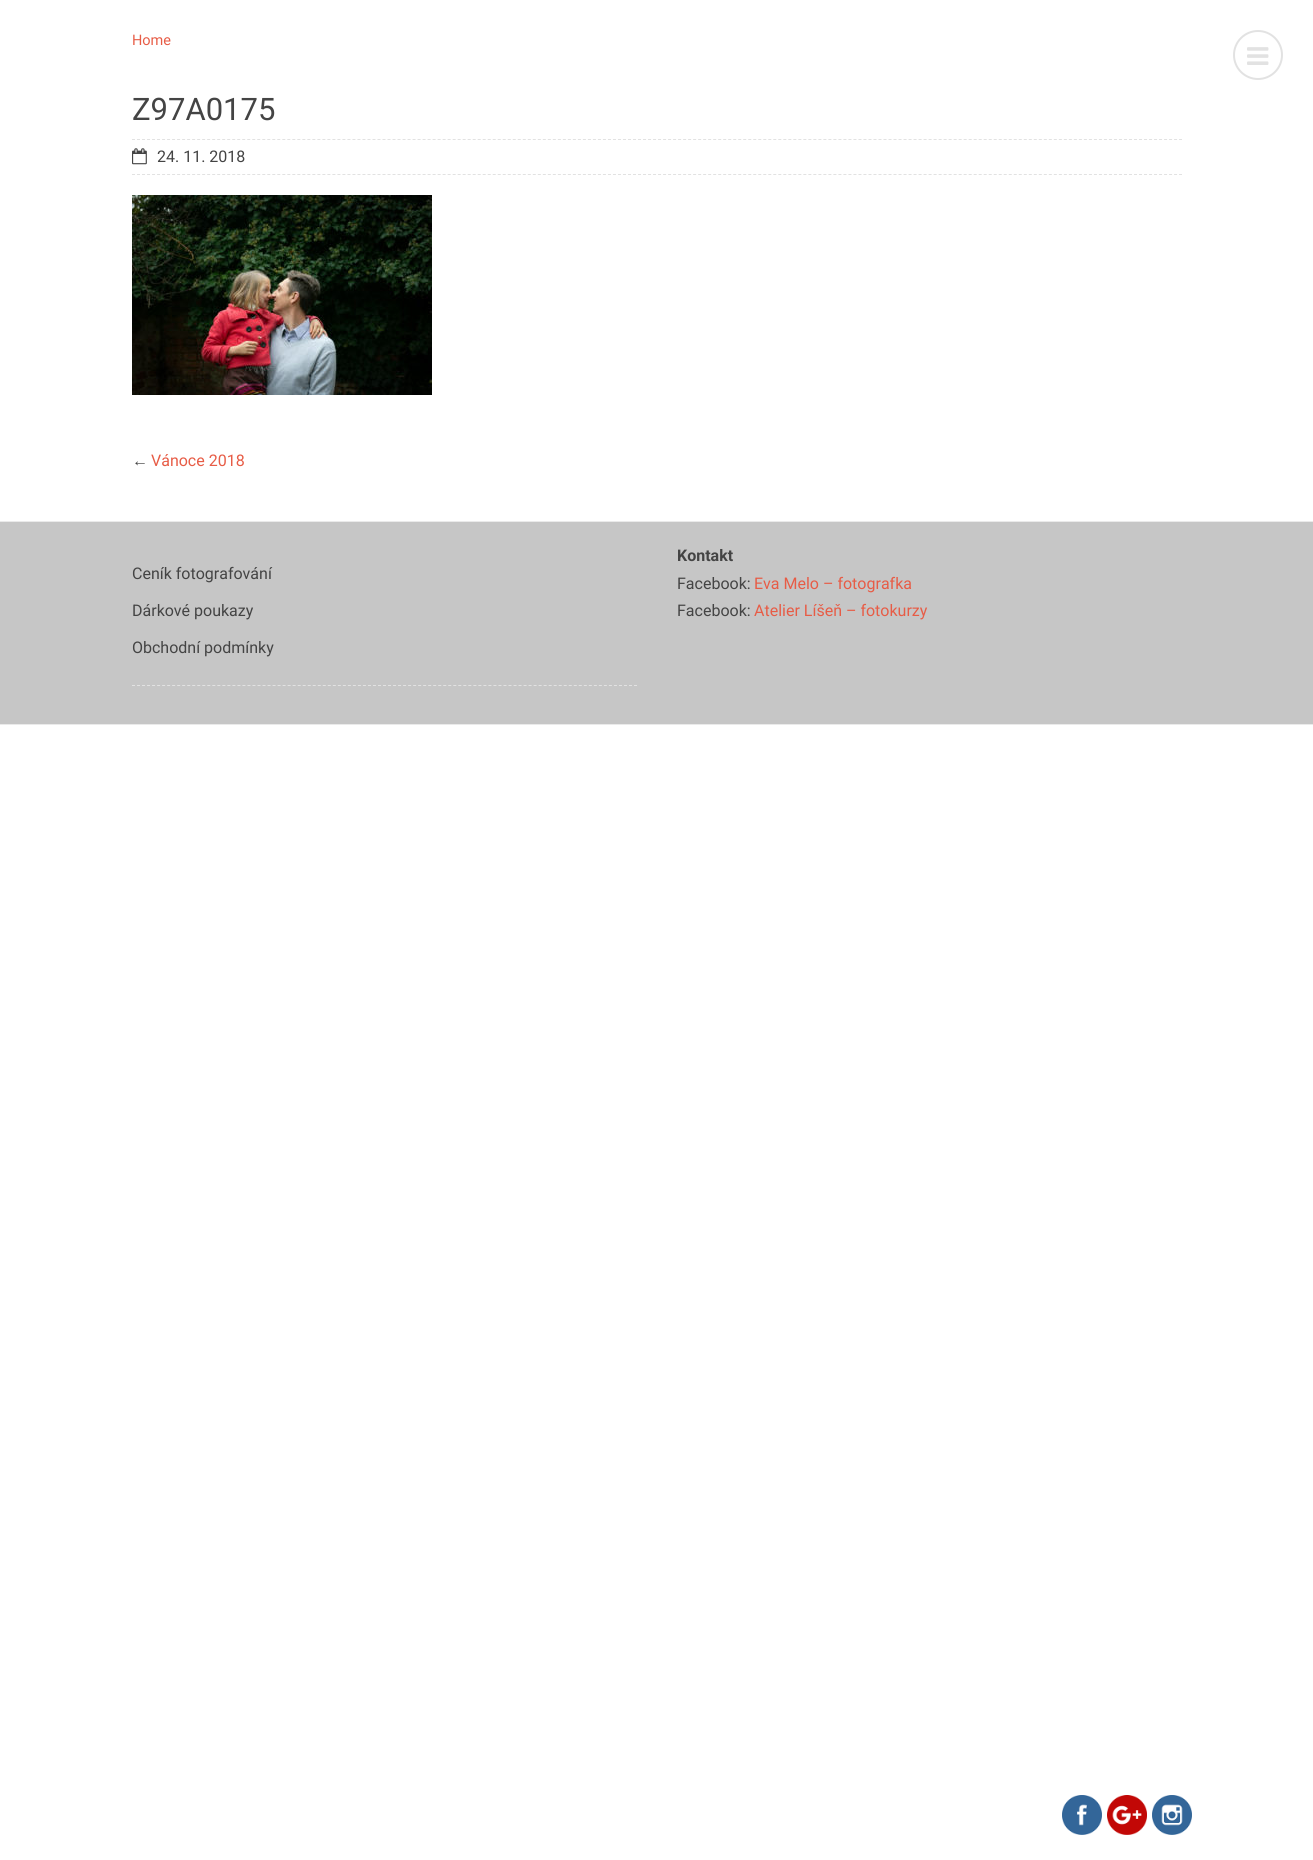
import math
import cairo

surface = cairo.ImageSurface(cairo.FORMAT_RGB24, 1313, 1860)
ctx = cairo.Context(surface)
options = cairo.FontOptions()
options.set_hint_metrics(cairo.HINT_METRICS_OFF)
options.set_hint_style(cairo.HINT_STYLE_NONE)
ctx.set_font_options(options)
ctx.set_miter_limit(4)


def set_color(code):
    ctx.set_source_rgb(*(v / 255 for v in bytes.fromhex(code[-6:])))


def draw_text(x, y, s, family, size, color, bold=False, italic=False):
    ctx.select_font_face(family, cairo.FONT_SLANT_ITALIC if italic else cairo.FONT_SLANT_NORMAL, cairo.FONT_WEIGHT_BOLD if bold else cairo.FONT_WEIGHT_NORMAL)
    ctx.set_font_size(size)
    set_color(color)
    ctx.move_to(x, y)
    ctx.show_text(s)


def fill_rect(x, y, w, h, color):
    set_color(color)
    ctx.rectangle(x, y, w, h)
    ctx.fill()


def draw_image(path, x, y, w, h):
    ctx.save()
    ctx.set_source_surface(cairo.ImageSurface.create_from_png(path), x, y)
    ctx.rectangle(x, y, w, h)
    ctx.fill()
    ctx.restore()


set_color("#ffffff")
ctx.paint()
draw_text(132, 45, "Home", "Roboto", 14.5, "#e75c46")
draw_text(132, 120, "Z97A0175", "Roboto", 31, "#444444")
ctx.new_path()
ctx.move_to(132, 139.5)
ctx.line_to(1182, 139.5)
set_color("#e2e2e2")
ctx.set_line_width(1)
ctx.set_dash([3, 2.01])
ctx.stroke()
ctx.new_path()
ctx.move_to(132, 174.5)
ctx.line_to(1182, 174.5)
ctx.stroke()
draw_image("assets/img1.png", 132, 148, 15, 17)
draw_text(157, 162, "24. 11. 2018", "Roboto", 16, "#444444")
draw_image("assets/img2.png", 132, 195, 300, 200)
draw_text(132, 466, "←", "Liberation Serif", 16, "#444444")
draw_text(151, 466, "Vánoce 2018", "Roboto", 16, "#e75c46")
fill_rect(0, 522, 1313, 202, "#c6c6c6")
fill_rect(0, 521, 1313, 1, "#eaeaea")
fill_rect(0, 724, 1313, 1, "#eaeaea")
ctx.new_path()
ctx.move_to(132, 685.5)
ctx.line_to(637, 685.5)
set_color("#e2e2e2")
ctx.set_dash([3, 2.02])
ctx.stroke()
draw_text(132, 579, "Ceník fotografování", "Roboto", 16, "#444444")
draw_text(132, 616, "Dárkové poukazy", "Roboto", 16, "#444444")
draw_text(132, 653, "Obchodní podmínky", "Roboto", 16, "#444444")
draw_text(677, 561, "Kontakt", "Roboto", 16, "#444444", bold=True)
draw_text(677, 589, "Facebook:", "Roboto", 16, "#444444")
draw_text(754, 589, "Eva Melo – fotografka", "Roboto", 16, "#e75c46")
draw_text(677, 616, "Facebook:", "Roboto", 16, "#444444")
draw_text(754, 616, "Atelier Líšeň – fotokurzy", "Roboto", 16, "#e75c46")
ctx.new_path()
ctx.arc(1258, 55, 24, 0, 2 * math.pi)
set_color("#e2e2e2")
ctx.set_line_width(2)
ctx.set_dash([])
ctx.stroke()
draw_image("assets/img3.png", 1247, 47, 22, 18)
draw_image("assets/img4.png", 1062, 1795, 40, 40)
draw_image("assets/img5.png", 1107, 1795, 40, 40)
draw_image("assets/img6.png", 1152, 1795, 40, 40)
surface.write_to_png("output.png")
